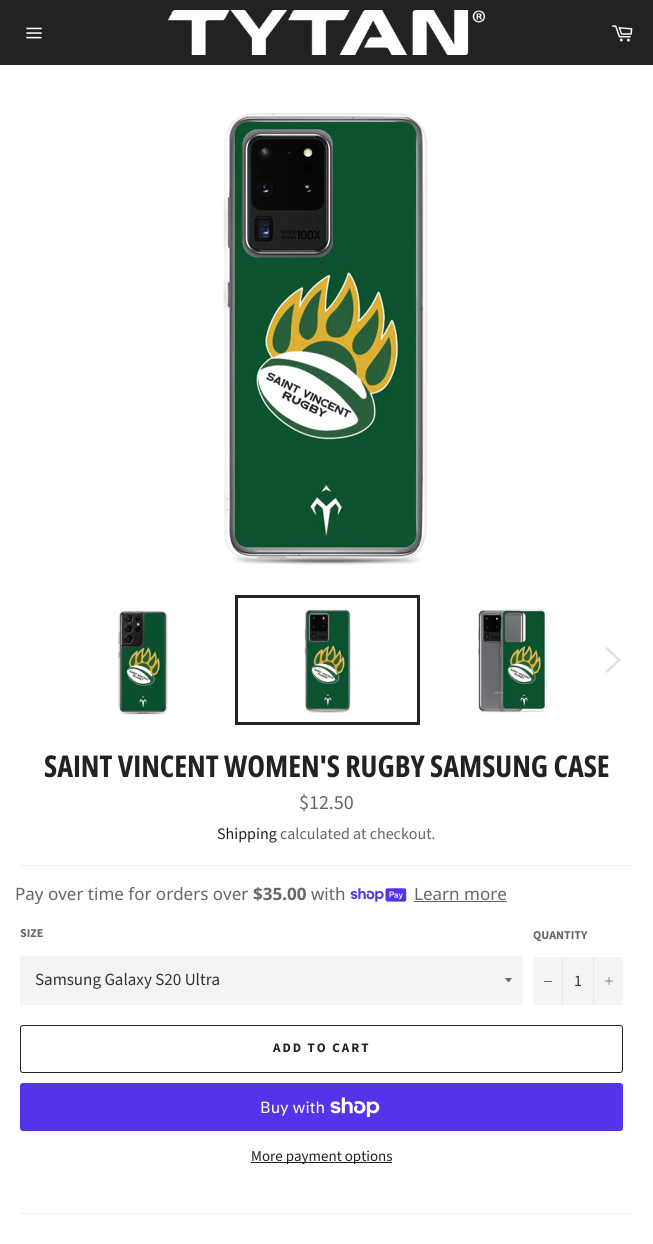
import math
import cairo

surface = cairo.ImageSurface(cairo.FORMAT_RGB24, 653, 1244)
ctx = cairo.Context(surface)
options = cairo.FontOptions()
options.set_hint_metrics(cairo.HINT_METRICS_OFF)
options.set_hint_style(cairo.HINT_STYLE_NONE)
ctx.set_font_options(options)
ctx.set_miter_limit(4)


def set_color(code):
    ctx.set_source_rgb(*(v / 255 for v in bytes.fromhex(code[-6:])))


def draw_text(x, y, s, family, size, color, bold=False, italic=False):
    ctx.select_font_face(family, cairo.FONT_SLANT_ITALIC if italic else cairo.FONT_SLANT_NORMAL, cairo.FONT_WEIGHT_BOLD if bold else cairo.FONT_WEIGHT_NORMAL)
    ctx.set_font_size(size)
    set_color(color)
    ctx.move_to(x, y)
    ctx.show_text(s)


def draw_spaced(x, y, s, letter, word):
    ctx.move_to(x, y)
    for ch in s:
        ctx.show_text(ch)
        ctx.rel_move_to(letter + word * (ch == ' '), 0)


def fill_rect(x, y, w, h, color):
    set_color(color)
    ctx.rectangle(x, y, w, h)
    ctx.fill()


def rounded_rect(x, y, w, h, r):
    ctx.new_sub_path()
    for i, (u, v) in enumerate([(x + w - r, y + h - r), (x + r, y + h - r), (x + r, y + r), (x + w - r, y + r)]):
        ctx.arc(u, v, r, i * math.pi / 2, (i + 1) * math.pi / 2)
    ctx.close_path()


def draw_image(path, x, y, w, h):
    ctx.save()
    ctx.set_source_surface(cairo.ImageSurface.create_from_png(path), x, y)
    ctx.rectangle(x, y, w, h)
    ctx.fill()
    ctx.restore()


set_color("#222222")
ctx.paint()
draw_image("assets/img1.png", 26, 27, 16, 12)
draw_image("assets/img2.png", 168, 10, 317, 45)
draw_image("assets/img3.png", 611, 25, 22, 17)
fill_rect(0, 65, 653, 1179, "#ffffff")
draw_image("assets/img4.png", 223, 113, 205, 452)
draw_image("assets/img5.png", 117, 610, 51, 105)
draw_image("assets/img6.png", 303, 608, 49, 105)
ctx.rectangle(236.5, 596.5, 182, 127)
set_color("#222222")
ctx.set_line_width(3)
ctx.stroke()
draw_image("assets/img7.png", 477, 609, 71, 104)
set_color("#e0e0e0")
ctx.new_path()
ctx.move_to(605, 648.5)
ctx.line_to(607, 647)
ctx.line_to(621, 660)
ctx.line_to(607, 673)
ctx.line_to(605, 671.5)
ctx.line_to(617.5, 660)
ctx.close_path()
ctx.fill()
draw_text(44, 777, "SAINT VINCENT WOMEN'S RUGBY SAMSUNG CASE", "Open Sans Condensed", 30, "#222222", bold=True)
draw_text(299, 809, "$12.50", "Source Sans Pro", 20, "#666666")
draw_text(217, 839, "Shipping", "Source Sans Pro", 16, "#222222")
draw_text(280, 839, "calculated at checkout.", "Source Sans Pro", 16, "#666666")
fill_rect(20, 865, 613, 1, "#f0f0f0")
draw_text(15, 900, "Pay over time for orders over", "Noto Sans", 17, "#666666")
draw_text(253, 900, "$35.00", "Noto Sans", 17, "#666666", bold=True)
draw_text(311, 900, "with", "Noto Sans", 17, "#666666")
draw_image("assets/img8.png", 350, 888, 57, 14)
draw_text(414, 900, "Learn more", "Noto Sans", 17, "#666666")
fill_rect(414, 901, 93, 1, "#666666")
draw_text(20, 937, "SIZE", "Source Sans Pro", 12, "#666666", bold=True)
fill_rect(20, 956, 503, 49, "#f4f4f4")
set_color("#666666")
ctx.new_path()
ctx.move_to(505, 978)
ctx.curve_to(509.5, 983.5, 507.5, 983.5, 512, 978)
ctx.close_path()
ctx.fill()
draw_text(35, 985, "Samsung Galaxy S20 Ultra", "Source Sans Pro", 17, "#333333")
draw_text(533, 939, "QUANTITY", "Source Sans Pro", 12, "#666666", bold=True)
fill_rect(533, 957, 90, 48, "#f4f4f4")
fill_rect(562, 957, 1, 48, "#e7e7e7")
fill_rect(544, 981, 8, 1, "#666666")
draw_text(574, 986, "1", "Source Sans Pro", 16, "#333333")
fill_rect(593, 957, 1, 48, "#e7e7e7")
draw_image("assets/img9.png", 605, 977, 8, 8)
rounded_rect(20.5, 1025.5, 602, 47, 2.5)
set_color("#222222")
ctx.set_line_width(1)
ctx.stroke()
ctx.select_font_face("Source Sans Pro", cairo.FONT_SLANT_NORMAL, cairo.FONT_WEIGHT_BOLD)
ctx.set_font_size(13)
draw_spaced(273, 1052, "ADD TO CART", 2, 0)
set_color("#5433eb")
rounded_rect(20, 1083, 603, 48, 3)
ctx.fill()
draw_text(260, 1113, "Buy with", "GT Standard", 16, "#ffffff")
draw_image("assets/img10.png", 330, 1097, 50, 20)
fill_rect(251, 1162, 141, 1, "#222222")
draw_text(251, 1161, "More payment options", "Source Sans Pro", 15, "#222222")
fill_rect(20, 1213, 613, 1, "#f0f0f0")
surface.write_to_png("output.png")
